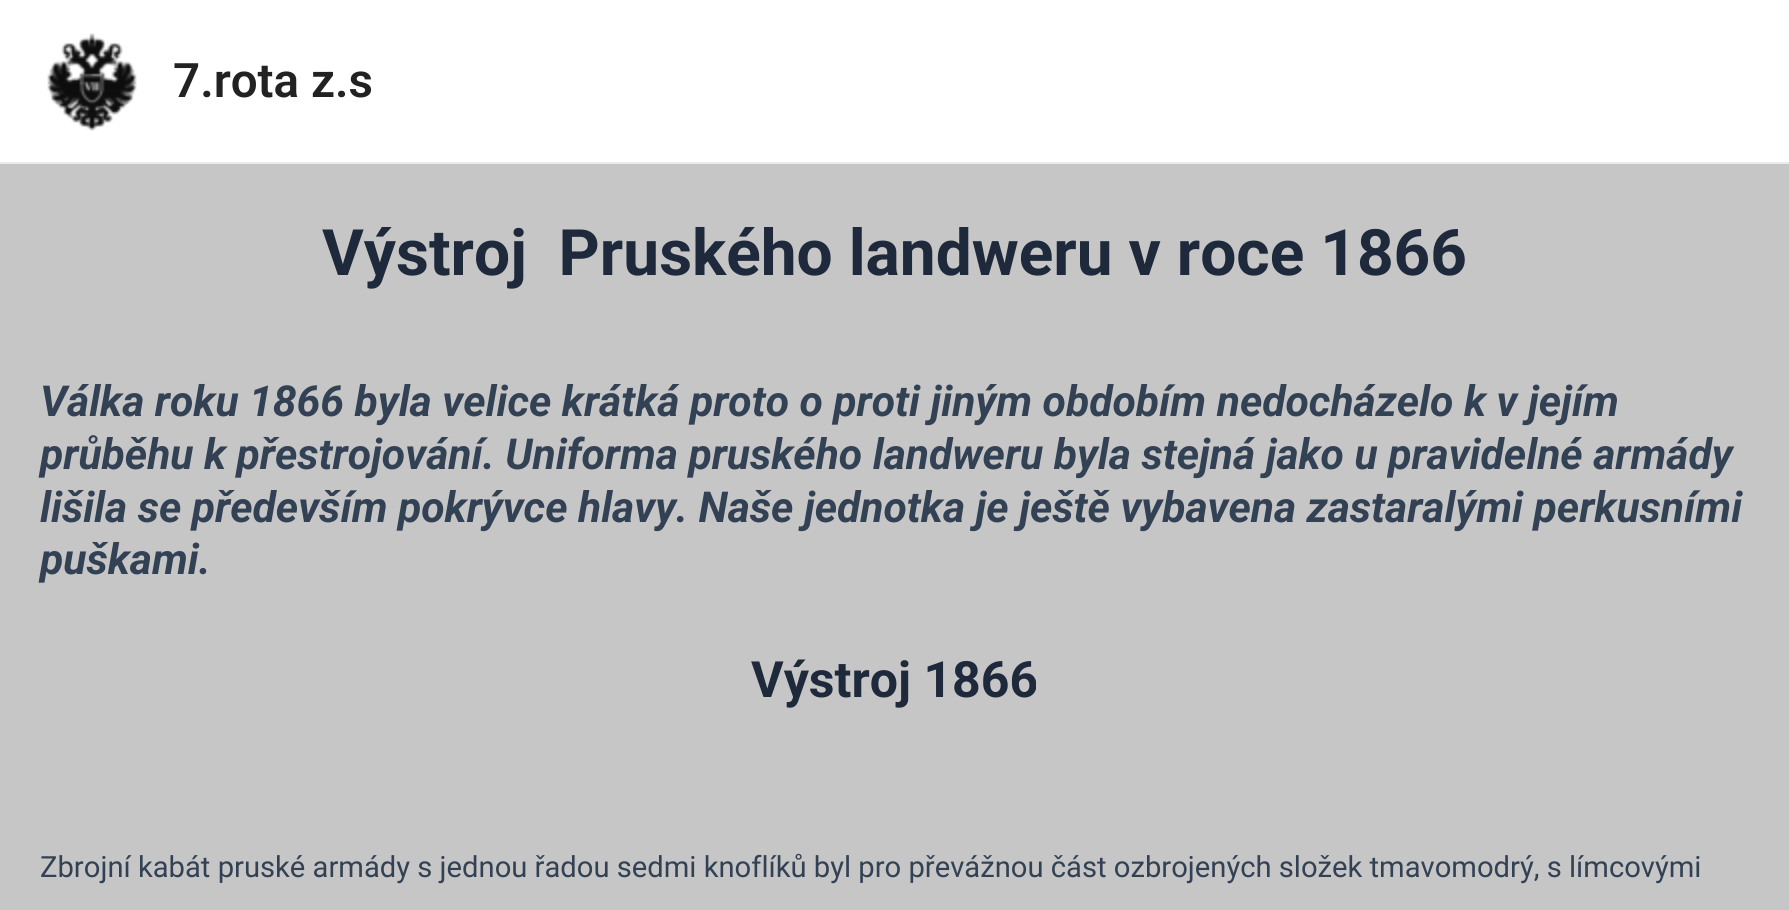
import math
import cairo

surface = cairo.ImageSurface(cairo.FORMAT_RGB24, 1789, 910)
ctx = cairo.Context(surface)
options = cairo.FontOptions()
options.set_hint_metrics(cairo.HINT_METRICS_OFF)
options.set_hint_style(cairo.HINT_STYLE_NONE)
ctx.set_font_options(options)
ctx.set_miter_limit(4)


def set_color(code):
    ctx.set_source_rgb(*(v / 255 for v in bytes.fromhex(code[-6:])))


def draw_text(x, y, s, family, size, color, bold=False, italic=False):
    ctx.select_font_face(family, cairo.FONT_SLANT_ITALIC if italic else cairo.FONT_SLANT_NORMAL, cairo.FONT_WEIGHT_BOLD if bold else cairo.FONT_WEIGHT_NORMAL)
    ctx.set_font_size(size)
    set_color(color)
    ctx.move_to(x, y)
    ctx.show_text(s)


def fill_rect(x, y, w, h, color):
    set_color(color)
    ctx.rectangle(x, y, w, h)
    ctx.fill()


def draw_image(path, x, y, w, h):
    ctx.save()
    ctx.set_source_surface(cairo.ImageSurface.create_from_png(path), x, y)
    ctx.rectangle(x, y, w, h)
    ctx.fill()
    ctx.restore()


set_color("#c6c6c6")
ctx.paint()
fill_rect(0, 0, 1789, 162, "#ffffff")
fill_rect(0, 162, 1789, 2, "#eaeaea")
draw_image("assets/img1.png", 47, 33, 90, 98)
draw_text(173, 97, "7.rota z.s", "Roboto SemiBold", 47.5, "#222222")
draw_text(322, 275, "Výstroj  Pruského landweru v roce 1866", "Roboto", 64, "#1e293b", bold=True)
draw_text(40, 416, "Válka roku 1866 byla velice krátká proto o proti jiným obdobím nedocházelo k v jejím", "Roboto", 42.65, "#334155", bold=True, italic=True)
draw_text(40, 469, "průběhu k přestrojování. Uniforma pruského landweru byla stejná jako u pravidelné armády", "Roboto", 42.65, "#334155", bold=True, italic=True)
draw_text(40, 522, "lišila se především pokrývce hlavy. Naše jednotka je ještě vybavena zastaralými perkusními", "Roboto", 42.65, "#334155", bold=True, italic=True)
draw_text(40, 574, "puškami.", "Roboto", 42.65, "#334155", bold=True, italic=True)
draw_text(751, 697, "Výstroj 1866", "Roboto", 50, "#1e293b", bold=True)
draw_text(40, 877, "Zbrojní kabát pruské armády s jednou řadou sedmi knoflíků byl pro převážnou část ozbrojených složek tmavomodrý, s límcovými", "Roboto", 29.18, "#334155")
surface.write_to_png("output.png")
